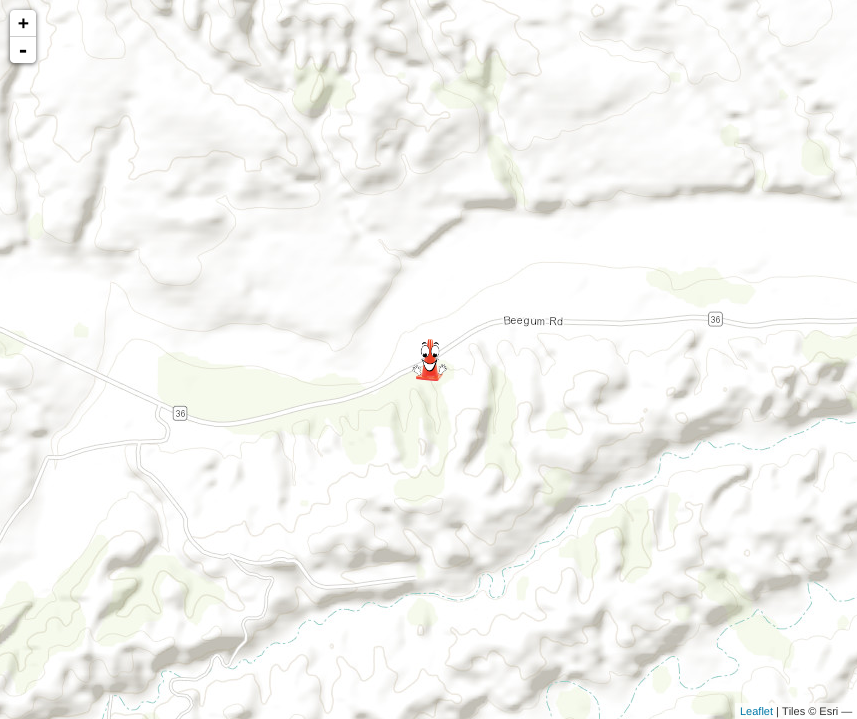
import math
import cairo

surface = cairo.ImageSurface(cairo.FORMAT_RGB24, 857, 719)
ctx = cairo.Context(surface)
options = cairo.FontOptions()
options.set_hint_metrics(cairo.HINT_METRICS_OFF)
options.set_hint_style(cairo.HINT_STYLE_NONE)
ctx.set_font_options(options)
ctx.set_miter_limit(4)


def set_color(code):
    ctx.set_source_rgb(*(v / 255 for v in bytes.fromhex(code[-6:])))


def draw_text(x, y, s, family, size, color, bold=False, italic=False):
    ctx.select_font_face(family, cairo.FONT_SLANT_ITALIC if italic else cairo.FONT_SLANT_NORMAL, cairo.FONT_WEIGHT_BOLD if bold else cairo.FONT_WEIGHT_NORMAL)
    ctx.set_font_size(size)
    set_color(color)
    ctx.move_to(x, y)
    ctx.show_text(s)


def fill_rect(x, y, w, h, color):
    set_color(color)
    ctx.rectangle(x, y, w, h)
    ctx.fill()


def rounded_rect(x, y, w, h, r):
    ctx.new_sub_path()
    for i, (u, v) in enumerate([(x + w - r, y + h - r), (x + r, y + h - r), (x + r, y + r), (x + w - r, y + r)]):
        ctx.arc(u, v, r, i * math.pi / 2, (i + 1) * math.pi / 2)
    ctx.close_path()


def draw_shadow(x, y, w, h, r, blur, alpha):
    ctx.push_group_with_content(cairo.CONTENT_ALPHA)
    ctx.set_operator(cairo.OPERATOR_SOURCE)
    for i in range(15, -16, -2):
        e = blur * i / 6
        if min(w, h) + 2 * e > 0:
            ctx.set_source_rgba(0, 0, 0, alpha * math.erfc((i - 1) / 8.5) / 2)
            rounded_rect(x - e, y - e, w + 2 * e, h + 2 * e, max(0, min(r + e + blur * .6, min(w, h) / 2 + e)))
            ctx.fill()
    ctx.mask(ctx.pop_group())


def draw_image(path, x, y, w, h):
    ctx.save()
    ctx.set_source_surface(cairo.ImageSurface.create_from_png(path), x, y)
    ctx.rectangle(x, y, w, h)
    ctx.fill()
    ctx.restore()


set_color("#ffffff")
ctx.paint()
draw_image("assets/img1.png", 0, 0, 14, 119)
draw_image("assets/img2.png", 14, 0, 256, 119)
draw_image("assets/img3.png", 270, 0, 256, 119)
draw_image("assets/img4.png", 526, 0, 256, 119)
draw_image("assets/img5.png", 782, 0, 75, 119)
draw_image("assets/img6.png", 0, 119, 14, 256)
draw_image("assets/img7.png", 14, 119, 256, 256)
draw_image("assets/img8.png", 270, 119, 256, 256)
draw_image("assets/img9.png", 526, 119, 256, 256)
draw_image("assets/img10.png", 782, 119, 75, 256)
draw_image("assets/img11.png", 0, 375, 14, 256)
draw_image("assets/img12.png", 14, 375, 256, 256)
draw_image("assets/img13.png", 270, 375, 256, 256)
draw_image("assets/img14.png", 526, 375, 256, 256)
draw_image("assets/img15.png", 782, 375, 75, 256)
draw_image("assets/img16.png", 0, 631, 14, 88)
draw_image("assets/img17.png", 14, 631, 256, 88)
draw_image("assets/img18.png", 270, 631, 256, 88)
draw_image("assets/img19.png", 526, 631, 256, 88)
draw_image("assets/img20.png", 782, 631, 75, 88)
draw_image("assets/img21.png", 412, 339, 36, 42)
set_color("#000000")
draw_shadow(10, 11, 26, 53, 4, 2.5, 0.65)
set_color("#ffffff")
ctx.new_path()
ctx.move_to(14, 10)
ctx.line_to(32, 10)
ctx.curve_to(34, 10, 36, 12, 36, 14)
ctx.line_to(36, 37)
ctx.line_to(10, 37)
ctx.line_to(10, 14)
ctx.curve_to(10, 12, 12, 10, 14, 10)
ctx.close_path()
ctx.fill()
fill_rect(10, 36, 26, 1, "#cccccc")
draw_text(18, 29, "+", "DejaVu Sans Mono", 18, "#000000", bold=True)
set_color("#ffffff")
ctx.new_path()
ctx.move_to(10, 37)
ctx.line_to(36, 37)
ctx.line_to(36, 59)
ctx.curve_to(36, 61, 34, 63, 32, 63)
ctx.line_to(14, 63)
ctx.curve_to(12, 63, 10, 61, 10, 59)
ctx.close_path()
ctx.fill()
draw_text(17, 57, "-", "DejaVu Sans Mono", 20, "#000000", bold=True)
ctx.set_source_rgba(1, 1, 1, 0.7)
ctx.rectangle(735, 703, 106, 16)
ctx.fill()
draw_text(740, 715, "Leaflet", "Liberation Sans", 11, "#0078a8")
draw_text(776, 715, "| Tiles © Esri —", "Liberation Sans", 11, "#333333")
surface.write_to_png("output.png")
